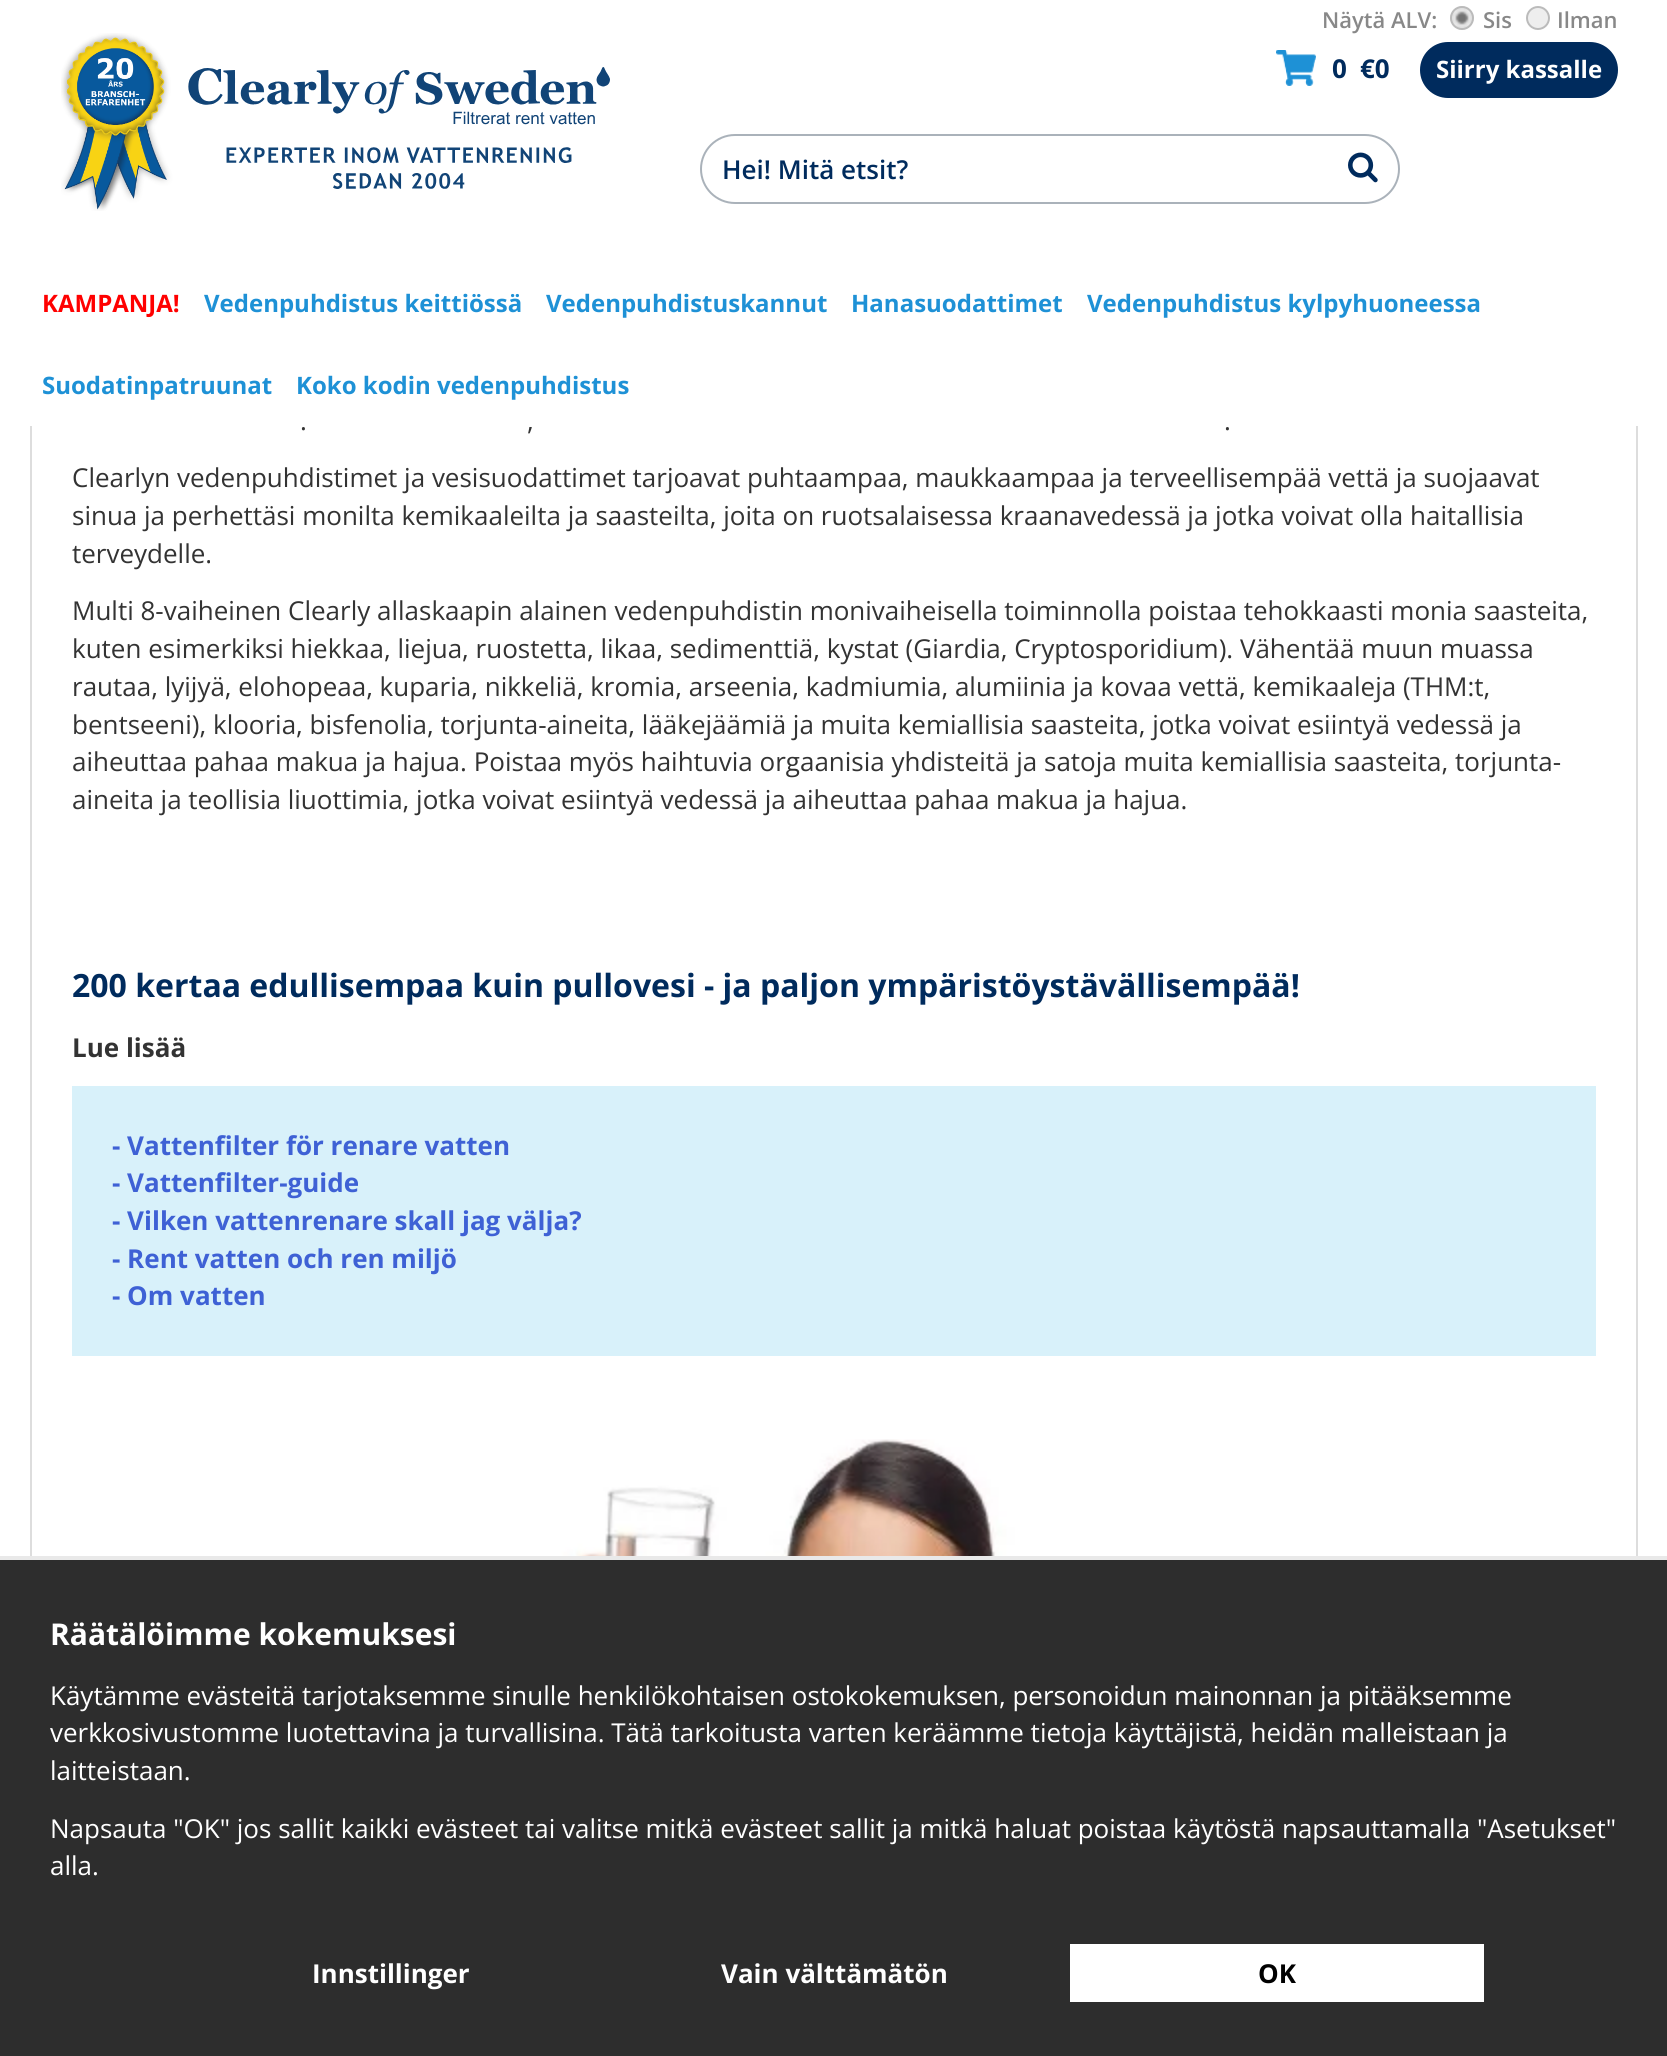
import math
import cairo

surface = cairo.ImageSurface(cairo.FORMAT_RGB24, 1667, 2056)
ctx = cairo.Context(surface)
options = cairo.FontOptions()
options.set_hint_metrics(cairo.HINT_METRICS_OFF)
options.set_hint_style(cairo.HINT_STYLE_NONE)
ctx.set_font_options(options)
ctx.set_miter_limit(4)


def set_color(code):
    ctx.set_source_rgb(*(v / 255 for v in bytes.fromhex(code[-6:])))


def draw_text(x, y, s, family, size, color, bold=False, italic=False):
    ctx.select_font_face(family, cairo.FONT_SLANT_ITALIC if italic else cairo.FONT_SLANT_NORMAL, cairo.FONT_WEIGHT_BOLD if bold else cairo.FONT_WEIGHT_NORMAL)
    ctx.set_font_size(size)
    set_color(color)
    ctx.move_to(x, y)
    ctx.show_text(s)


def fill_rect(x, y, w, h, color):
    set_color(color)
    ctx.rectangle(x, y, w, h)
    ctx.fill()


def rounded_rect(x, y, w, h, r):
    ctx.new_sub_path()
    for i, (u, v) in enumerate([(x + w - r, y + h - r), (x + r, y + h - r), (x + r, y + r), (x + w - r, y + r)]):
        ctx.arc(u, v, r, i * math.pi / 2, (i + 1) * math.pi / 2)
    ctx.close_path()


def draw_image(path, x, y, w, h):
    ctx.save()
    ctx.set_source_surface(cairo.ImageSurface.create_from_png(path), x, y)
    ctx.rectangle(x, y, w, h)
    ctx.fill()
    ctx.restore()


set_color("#ffffff")
ctx.paint()
ctx.rectangle(31, -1, 1606, 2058)
set_color("#dddddd")
ctx.stroke()
fill_rect(30, 0, 1608, 426, "#ffffff")
draw_image("assets/img1.png", 61, 33, 549, 178)
rounded_rect(701, 135, 698, 68, 34)
set_color("#aab2ba")
ctx.stroke()
draw_text(722, 179, "Hei! Mitä etsit?", "Open Sans SemiBold", 26, "#002b5d")
draw_image("assets/img2.png", 1348, 152, 30, 31)
draw_text(1322, 28, "Näytä ALV:", "Open Sans SemiBold", 22, "#888888")
draw_image("assets/img3.png", 1450, 6, 24, 24)
ctx.arc(1462, 18, 11, 0, 2 * math.pi)
set_color("#bbbbbb")
ctx.stroke()
draw_text(1483, 28, "Sis", "Open Sans SemiBold", 22, "#888888")
set_color("#eeeeee")
ctx.new_path()
ctx.arc(1538, 18, 11, 0, 2 * math.pi)
ctx.fill_preserve()
set_color("#bbbbbb")
ctx.stroke()
draw_text(1557, 28, "Ilman", "Open Sans SemiBold", 22, "#888888")
draw_image("assets/img4.png", 1276, 50, 40, 36)
draw_text(1332, 78, "0", "Open Sans", 26, "#002b5d", bold=True)
draw_text(1360, 78, "€0", "Open Sans", 26, "#002b5d", bold=True)
rounded_rect(1420, 42, 198, 56, 28)
ctx.fill()
draw_text(1436, 78, "Siirry kassalle", "Open Sans", 24, "#ffffff", bold=True)
draw_text(42, 312, "KAMPANJA!", "Open Sans", 24, "#ff0000", bold=True)
draw_text(204, 312, "Vedenpuhdistus keittiössä", "Open Sans", 24, "#1e91d6", bold=True)
draw_text(546, 312, "Vedenpuhdistuskannut", "Open Sans", 24, "#1e91d6", bold=True)
draw_text(851, 312, "Hanasuodattimet", "Open Sans", 24, "#1e91d6", bold=True)
draw_text(1087, 312, "Vedenpuhdistus kylpyhuoneessa", "Open Sans", 24, "#1e91d6", bold=True)
draw_text(42, 394, "Suodatinpatruunat", "Open Sans", 24, "#1e91d6", bold=True)
draw_text(296, 394, "Koko kodin vedenpuhdistus", "Open Sans", 24, "#1e91d6", bold=True)
draw_text(300, 430, ".", "Open Sans", 26, "#333333")
draw_text(527, 430, ",", "Open Sans", 26, "#333333")
draw_text(1224, 430, ".", "Open Sans", 26, "#333333")
draw_text(72, 487, "Clearlyn vedenpuhdistimet ja vesisuodattimet tarjoavat puhtaampaa, maukkaampaa ja terveellisempää vettä ja suojaavat", "Open Sans", 26, "#333333")
draw_text(72, 525, "sinua ja perhettäsi monilta kemikaaleilta ja saasteilta, joita on ruotsalaisessa kraanavedessä ja jotka voivat olla haitallisia", "Open Sans", 26, "#333333")
draw_text(72, 563, "terveydelle.", "Open Sans", 26, "#333333")
draw_text(72, 620, "Multi 8-vaiheinen Clearly allaskaapin alainen vedenpuhdistin monivaiheisella toiminnolla poistaa tehokkaasti monia saasteita,", "Open Sans", 26, "#333333")
draw_text(72, 658, "kuten esimerkiksi hiekkaa, liejua, ruostetta, likaa, sedimenttiä, kystat (Giardia, Cryptosporidium). Vähentää muun muassa", "Open Sans", 26, "#333333")
draw_text(72, 696, "rautaa, lyijyä, elohopeaa, kuparia, nikkeliä, kromia, arseenia, kadmiumia, alumiinia ja kovaa vettä, kemikaaleja (THM:t,", "Open Sans", 26, "#333333")
draw_text(72, 734, "bentseeni), klooria, bisfenolia, torjunta-aineita, lääkejäämiä ja muita kemiallisia saasteita, jotka voivat esiintyä vedessä ja", "Open Sans", 26, "#333333")
draw_text(72, 771, "aiheuttaa pahaa makua ja hajua. Poistaa myös haihtuvia orgaanisia yhdisteitä ja satoja muita kemiallisia saasteita, torjunta-", "Open Sans", 26, "#333333")
draw_text(72, 809, "aineita ja teollisia liuottimia, jotka voivat esiintyä vedessä ja aiheuttaa pahaa makua ja hajua.", "Open Sans", 26, "#333333")
draw_text(72, 997, "200 kertaa edullisempaa kuin pullovesi - ja paljon ympäristöystävällisempää!", "Open Sans", 32, "#002b5d", bold=True)
draw_text(72, 1057, "Lue lisää", "Open Sans", 26, "#333333", bold=True)
fill_rect(72, 1086, 1524, 270, "#d8f1fa")
draw_text(112, 1155, "- Vattenfilter för renare vatten", "Open Sans", 26, "#3e61d5", bold=True)
draw_text(112, 1192, "- Vattenfilter-guide", "Open Sans", 26, "#3e61d5", bold=True)
draw_text(112, 1230, "- Vilken vattenrenare skall jag välja?", "Open Sans", 26, "#3e61d5", bold=True)
draw_text(112, 1268, "- Rent vatten och ren miljö", "Open Sans", 26, "#3e61d5", bold=True)
draw_text(112, 1305, "- Om vatten", "Open Sans", 26, "#3e61d5", bold=True)
draw_image("assets/img5.png", 526, 1439, 599, 117)
fill_rect(0, 1560, 1667, 496, "#2d2d2d")
fill_rect(0, 1556, 1667, 4, "#e9e9e9")
draw_text(50, 1645, "Räätälöimme kokemuksesi", "Open Sans", 30, "#ffffff", bold=True)
draw_text(50, 1705, "Käytämme evästeitä tarjotaksemme sinulle henkilökohtaisen ostokokemuksen, personoidun mainonnan ja pitääksemme", "Open Sans", 26, "#ffffff")
draw_text(50, 1742, "verkkosivustomme luotettavina ja turvallisina. Tätä tarkoitusta varten keräämme tietoja käyttäjistä, heidän malleistaan ja", "Open Sans", 26, "#ffffff")
draw_text(50, 1780, "laitteistaan.", "Open Sans", 26, "#ffffff")
draw_text(50, 1838, "Napsauta \"OK\" jos sallit kaikki evästeet tai valitse mitkä evästeet sallit ja mitkä haluat poistaa käytöstä napsauttamalla \"Asetukset\"", "Open Sans", 26, "#ffffff")
draw_text(50, 1875, "alla.", "Open Sans", 26, "#ffffff")
draw_text(312, 1983, "Innstillinger", "Open Sans", 26, "#ffffff", bold=True)
draw_text(721, 1983, "Vain välttämätön", "Open Sans", 26, "#ffffff", bold=True)
fill_rect(1070, 1944, 414, 58, "#ffffff")
draw_text(1258, 1983, "OK", "Open Sans", 26, "#000000", bold=True)
surface.write_to_png("output.png")
